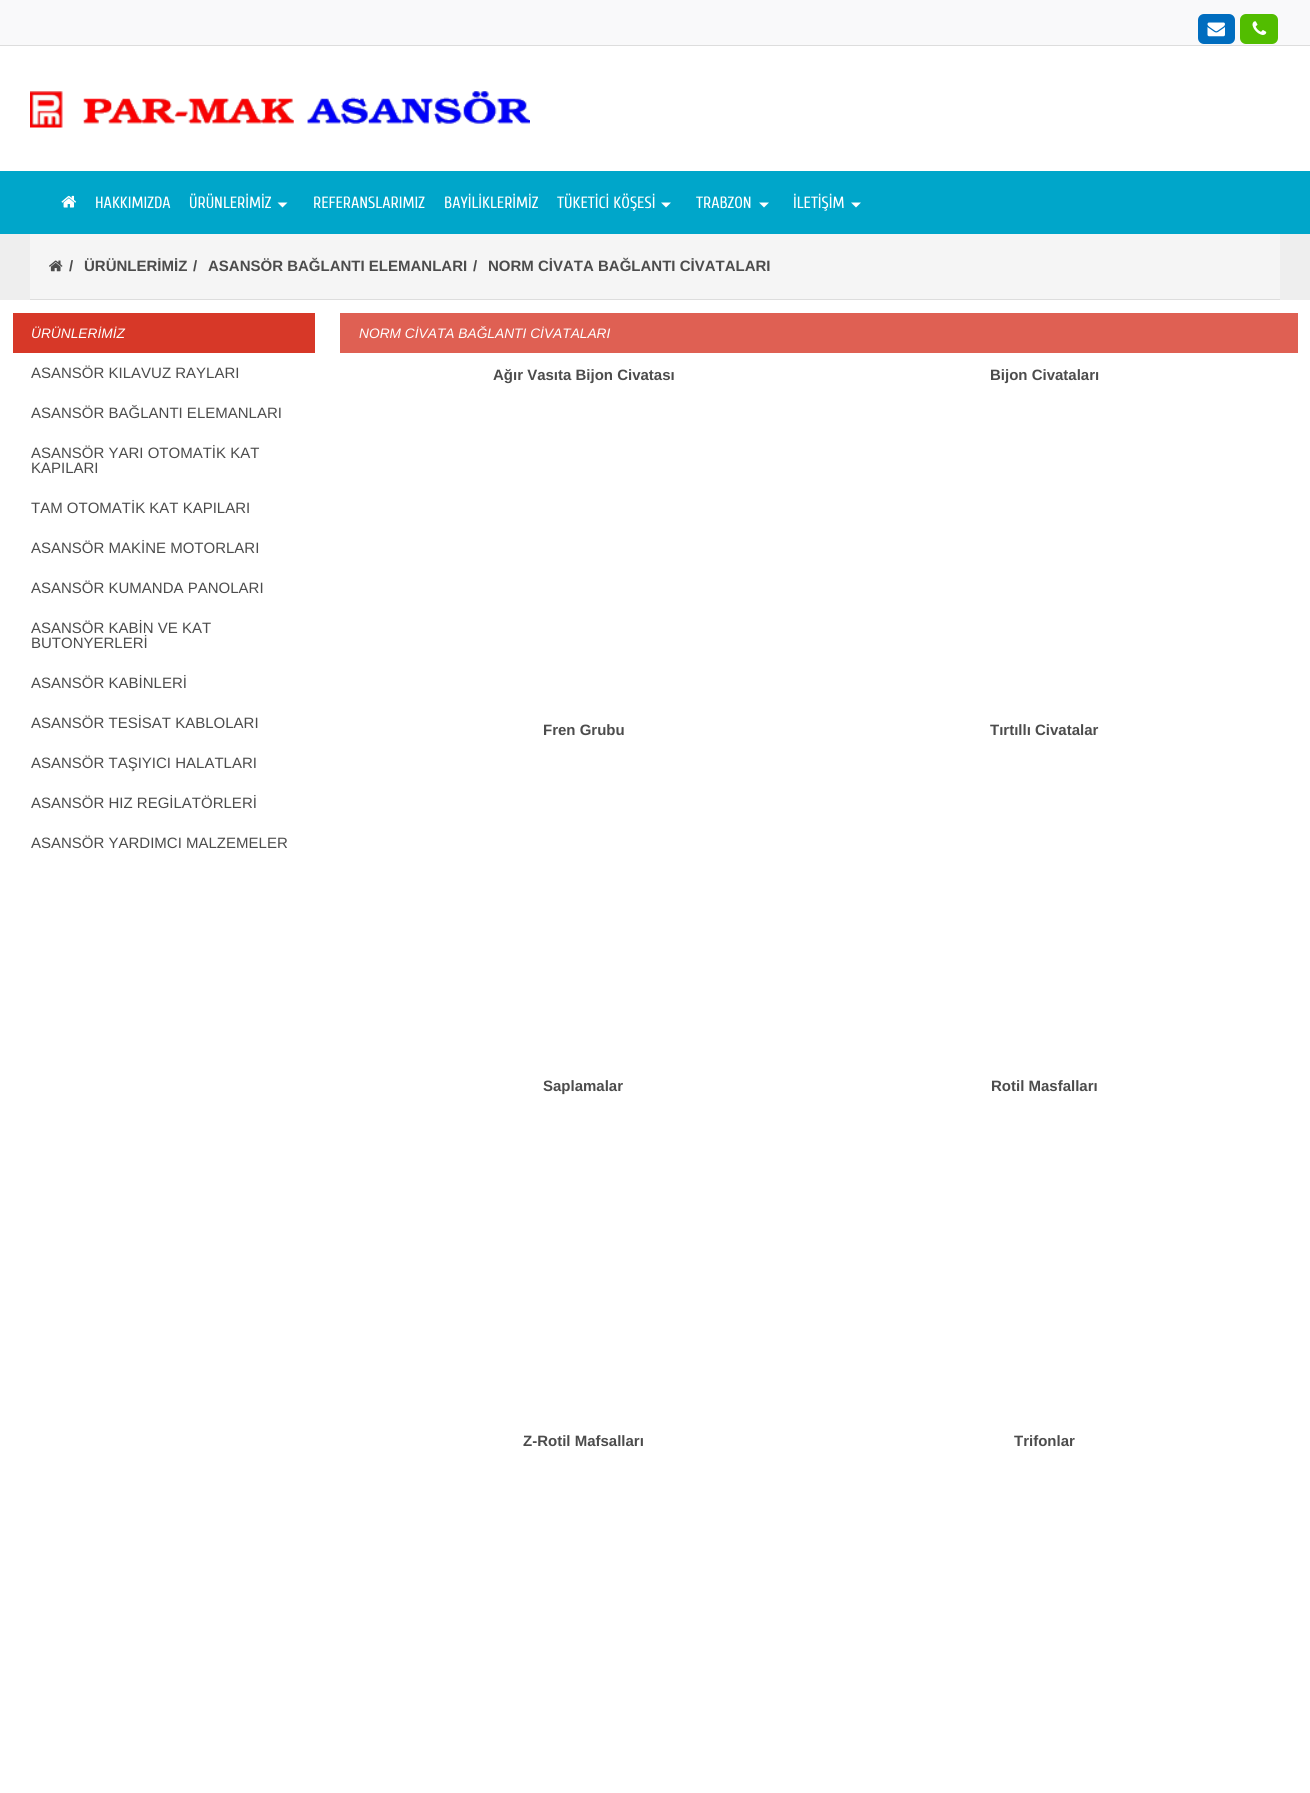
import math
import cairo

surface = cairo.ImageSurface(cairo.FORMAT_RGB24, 1310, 1793)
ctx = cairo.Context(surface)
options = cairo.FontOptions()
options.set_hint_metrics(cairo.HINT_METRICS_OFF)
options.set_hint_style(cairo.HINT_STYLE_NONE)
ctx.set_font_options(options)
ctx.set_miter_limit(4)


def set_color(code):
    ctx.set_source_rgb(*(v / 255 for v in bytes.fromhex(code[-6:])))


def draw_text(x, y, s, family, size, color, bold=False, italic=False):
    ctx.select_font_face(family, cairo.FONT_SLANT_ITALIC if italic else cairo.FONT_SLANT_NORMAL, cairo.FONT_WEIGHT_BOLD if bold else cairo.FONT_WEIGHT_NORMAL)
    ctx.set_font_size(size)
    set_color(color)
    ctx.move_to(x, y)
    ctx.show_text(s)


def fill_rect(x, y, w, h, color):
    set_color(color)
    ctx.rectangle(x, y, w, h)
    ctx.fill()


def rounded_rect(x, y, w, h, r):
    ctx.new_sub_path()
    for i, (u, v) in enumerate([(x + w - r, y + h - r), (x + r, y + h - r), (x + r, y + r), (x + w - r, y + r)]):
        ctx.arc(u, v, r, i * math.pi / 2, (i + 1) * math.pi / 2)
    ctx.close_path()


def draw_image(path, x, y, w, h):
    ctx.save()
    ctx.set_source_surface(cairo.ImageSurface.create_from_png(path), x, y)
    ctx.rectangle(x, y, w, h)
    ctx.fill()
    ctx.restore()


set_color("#eeeeee")
ctx.paint()
fill_rect(0, 0, 1310, 45, "#f9f9fa")
fill_rect(0, 45, 1310, 1, "#dddddd")
set_color("#006dbf")
rounded_rect(1198, 14, 37, 30, 6)
ctx.fill()
draw_image("assets/img1.png", 1207, 22, 18, 15)
set_color("#52bd00")
rounded_rect(1240, 14, 38, 30, 6)
ctx.fill()
draw_image("assets/img2.png", 1252, 21, 15, 14)
fill_rect(0, 46, 1310, 125, "#ffffff")
draw_image("assets/img3.png", 30, 91, 500, 37)
fill_rect(0, 171, 1310, 63, "#00a6ca")
draw_image("assets/img4.png", 61, 195, 16, 13)
draw_text(95, 208, "HAKKIMIZDA", "Cuprum", 16.25, "#ffffff")
draw_text(189, 208, "ÜRÜNLERİMİZ", "Cuprum", 16.25, "#ffffff")
ctx.new_path()
ctx.move_to(277.5, 202.5)
ctx.line_to(287.5, 202.5)
ctx.line_to(282.5, 207.5)
ctx.close_path()
ctx.fill()
draw_text(313, 208, "REFERANSLARIMIZ", "Cuprum", 16.25, "#ffffff")
draw_text(444, 208, "BAYİLİKLERİMİZ", "Cuprum", 16.25, "#ffffff")
draw_text(557, 208, "TÜKETİCİ KÖŞESİ", "Cuprum", 16.25, "#ffffff")
ctx.new_path()
ctx.move_to(661, 202.5)
ctx.line_to(671, 202.5)
ctx.line_to(666, 207.5)
ctx.close_path()
ctx.fill()
draw_text(696, 208, "TRABZON", "Cuprum", 16.25, "#ffffff")
ctx.new_path()
ctx.move_to(759, 202.5)
ctx.line_to(769, 202.5)
ctx.line_to(764, 207.5)
ctx.close_path()
ctx.fill()
draw_text(793, 208, "İLETİŞİM", "Cuprum", 16.25, "#ffffff")
ctx.new_path()
ctx.move_to(851, 202.5)
ctx.line_to(861, 202.5)
ctx.line_to(856, 207.5)
ctx.close_path()
ctx.fill()
fill_rect(30, 234, 1250, 65, "#f5f5f5")
fill_rect(30, 299, 1250, 1, "#dddddd")
draw_image("assets/img5.png", 49, 260, 14, 12)
draw_text(69, 271, "/", "Liberation Sans", 15, "#4c4c4c", bold=True)
draw_text(84, 271, "ÜRÜNLERİMİZ", "Liberation Sans", 15, "#4c4c4c", bold=True)
draw_text(193, 271, "/", "Liberation Sans", 15, "#4c4c4c", bold=True)
draw_text(208, 271, "ASANSÖR BAĞLANTI ELEMANLARI", "Liberation Sans", 15, "#4c4c4c", bold=True)
draw_text(473, 271, "/", "Liberation Sans", 15, "#4c4c4c", bold=True)
draw_text(488, 271, "NORM CİVATA BAĞLANTI CİVATALARI", "Liberation Sans", 15, "#4c4c4c", bold=True)
fill_rect(0, 300, 1310, 1493, "#ffffff")
fill_rect(13, 313, 302, 40, "#d73828")
draw_text(31, 338, "ÜRÜNLERİMİZ", "Liberation Sans", 13.75, "#ffffff", italic=True)
draw_text(31, 378, "ASANSÖR KILAVUZ RAYLARI", "Liberation Sans", 15, "#4c4c4c")
draw_text(31, 418, "ASANSÖR BAĞLANTI ELEMANLARI", "Liberation Sans", 15, "#4c4c4c")
draw_text(31, 458, "ASANSÖR YARI OTOMATİK KAT", "Liberation Sans", 15, "#4c4c4c")
draw_text(31, 473, "KAPILARI", "Liberation Sans", 15, "#4c4c4c")
draw_text(31, 513, "TAM OTOMATİK KAT KAPILARI", "Liberation Sans", 15, "#4c4c4c")
draw_text(31, 553, "ASANSÖR MAKİNE MOTORLARI", "Liberation Sans", 15, "#4c4c4c")
draw_text(31, 593, "ASANSÖR KUMANDA PANOLARI", "Liberation Sans", 15, "#4c4c4c")
draw_text(31, 633, "ASANSÖR KABİN VE KAT", "Liberation Sans", 15, "#4c4c4c")
draw_text(31, 648, "BUTONYERLERİ", "Liberation Sans", 15, "#4c4c4c")
draw_text(31, 688, "ASANSÖR KABİNLERİ", "Liberation Sans", 15, "#4c4c4c")
draw_text(31, 728, "ASANSÖR TESİSAT KABLOLARI", "Liberation Sans", 15, "#4c4c4c")
draw_text(31, 768, "ASANSÖR TAŞIYICI HALATLARI", "Liberation Sans", 15, "#4c4c4c")
draw_text(31, 808, "ASANSÖR HIZ REGİLATÖRLERİ", "Liberation Sans", 15, "#4c4c4c")
draw_text(31, 848, "ASANSÖR YARDIMCI MALZEMELER", "Liberation Sans", 15, "#4c4c4c")
fill_rect(340, 313, 958, 40, "#df6053")
draw_text(359, 338, "NORM CİVATA BAĞLANTI CİVATALARI", "Liberation Sans", 13.75, "#ffffff", italic=True)
draw_text(493, 380, "Ağır Vasıta Bijon Civatası", "Liberation Sans", 15, "#4c4c4c", bold=True)
draw_text(990, 380, "Bijon Civataları", "Liberation Sans", 15, "#4c4c4c", bold=True)
draw_text(543, 735, "Fren Grubu", "Liberation Sans", 15, "#4c4c4c", bold=True)
draw_text(990, 735, "Tırtıllı Civatalar", "Liberation Sans", 15, "#4c4c4c", bold=True)
draw_text(543, 1091, "Saplamalar", "Liberation Sans", 15, "#4c4c4c", bold=True)
draw_text(991, 1091, "Rotil Masfalları", "Liberation Sans", 15, "#4c4c4c", bold=True)
draw_text(523, 1446, "Z-Rotil Mafsalları", "Liberation Sans", 15, "#4c4c4c", bold=True)
draw_text(1014, 1446, "Trifonlar", "Liberation Sans", 15, "#4c4c4c", bold=True)
surface.write_to_png("output.png")
